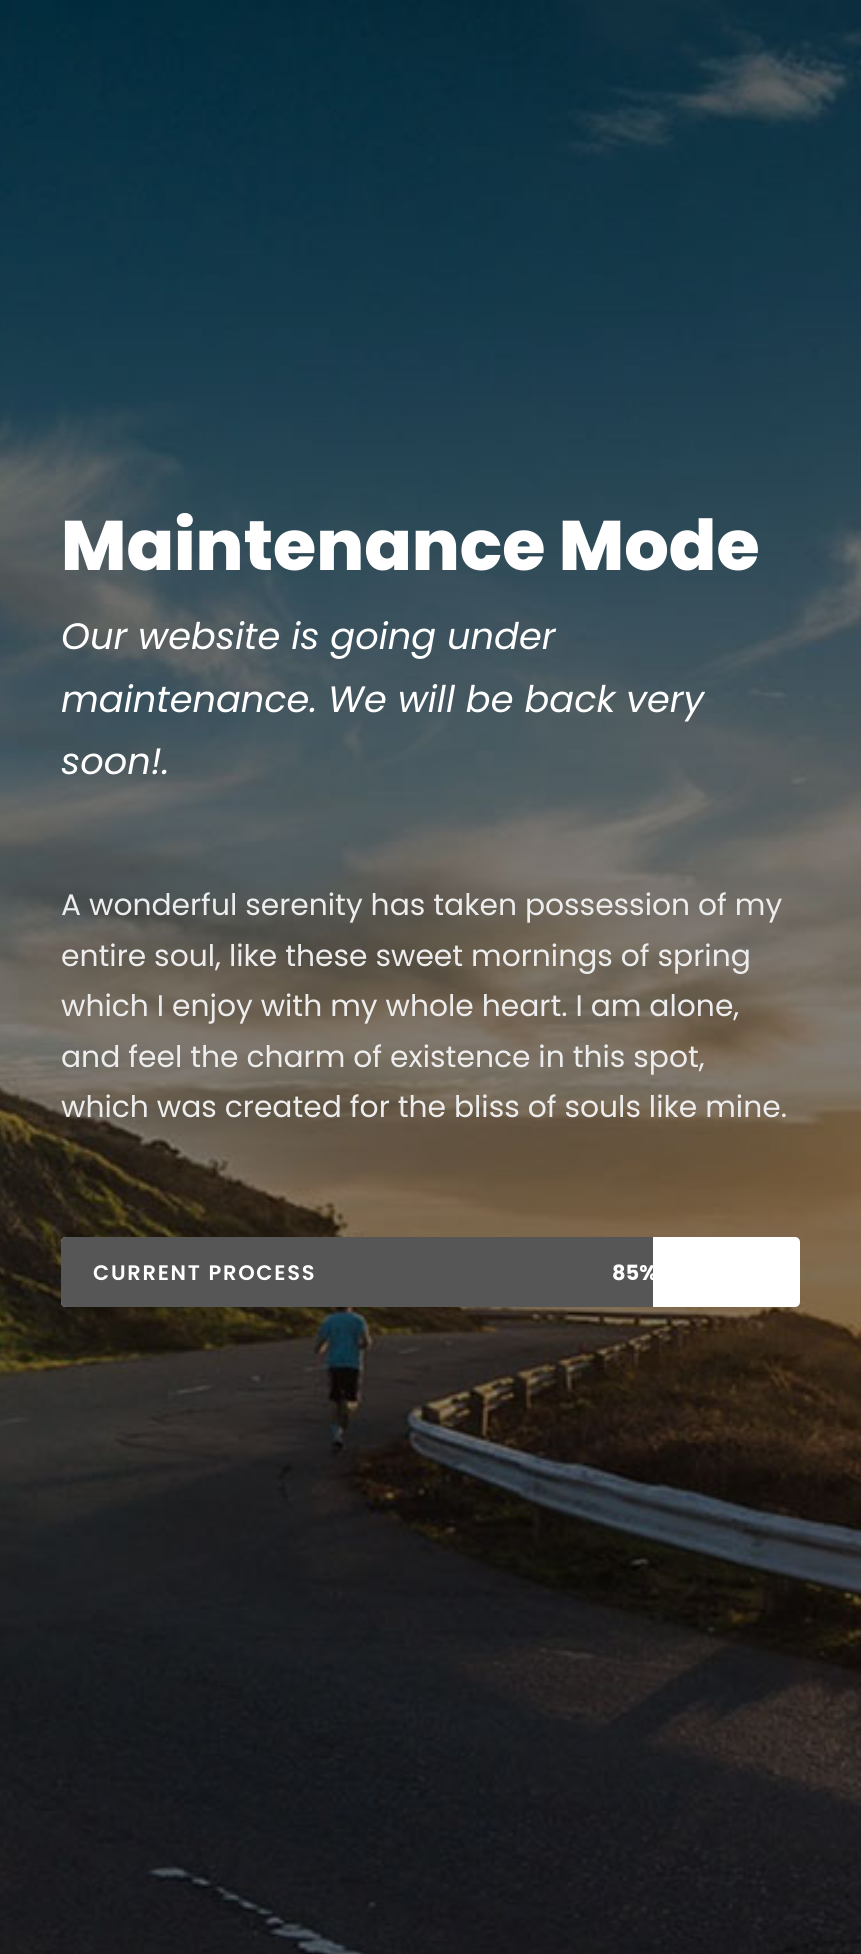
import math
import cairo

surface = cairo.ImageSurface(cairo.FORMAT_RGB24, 861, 1954)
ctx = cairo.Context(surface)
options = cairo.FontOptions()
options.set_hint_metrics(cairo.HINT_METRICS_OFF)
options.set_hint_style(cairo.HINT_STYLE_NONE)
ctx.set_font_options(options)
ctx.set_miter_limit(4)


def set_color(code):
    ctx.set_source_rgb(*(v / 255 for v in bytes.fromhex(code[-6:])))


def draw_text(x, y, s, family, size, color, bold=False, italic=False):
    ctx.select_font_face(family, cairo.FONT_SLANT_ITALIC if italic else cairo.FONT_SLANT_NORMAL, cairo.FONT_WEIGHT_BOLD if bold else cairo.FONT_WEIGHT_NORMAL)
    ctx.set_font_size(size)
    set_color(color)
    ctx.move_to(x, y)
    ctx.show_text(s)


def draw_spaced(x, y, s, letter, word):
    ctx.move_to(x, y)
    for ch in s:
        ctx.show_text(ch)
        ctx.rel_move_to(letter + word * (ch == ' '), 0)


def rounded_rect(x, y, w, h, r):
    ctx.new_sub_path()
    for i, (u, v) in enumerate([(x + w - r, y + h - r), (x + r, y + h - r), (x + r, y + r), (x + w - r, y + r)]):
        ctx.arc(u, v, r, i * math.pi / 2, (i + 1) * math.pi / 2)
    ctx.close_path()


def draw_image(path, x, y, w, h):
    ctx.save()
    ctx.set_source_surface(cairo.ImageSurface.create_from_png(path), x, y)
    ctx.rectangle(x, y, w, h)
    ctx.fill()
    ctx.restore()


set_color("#ffffff")
ctx.paint()
draw_image("assets/img1.png", 0, 0, 861, 1954)
draw_text(61, 570, "Maintenance Mode", "Poppins ExtraBold", 70, "#ffffff")
draw_text(61, 649, "Our website is going under", "Poppins", 36.75, "#ffffff", italic=True)
draw_text(61, 712, "maintenance. We will be back very", "Poppins", 36.75, "#ffffff", italic=True)
draw_text(61, 774, "soon!.", "Poppins", 36.75, "#ffffff", italic=True)
draw_text(61, 915, "A wonderful serenity has taken possession of my", "Poppins", 29.75, "#ededed")
draw_text(61, 966, "entire soul, like these sweet mornings of spring", "Poppins", 29.75, "#ededed")
draw_text(61, 1016, "which I enjoy with my whole heart. I am alone,", "Poppins", 29.75, "#ededed")
draw_text(61, 1067, "and feel the charm of existence in this spot,", "Poppins", 29.75, "#ededed")
draw_text(61, 1117, "which was created for the bliss of souls like mine.", "Poppins", 29.75, "#ededed")
set_color("#ffffff")
rounded_rect(61, 1237, 739, 70, 5)
ctx.fill()
set_color("#565656")
ctx.new_path()
ctx.move_to(66, 1237)
ctx.line_to(653, 1237)
ctx.line_to(653, 1307)
ctx.line_to(66, 1307)
ctx.curve_to(63, 1307, 61, 1305, 61, 1302)
ctx.line_to(61, 1242)
ctx.curve_to(61, 1239, 63, 1237, 66, 1237)
ctx.close_path()
ctx.fill()
ctx.select_font_face("Poppins SemiBold")
ctx.set_font_size(21)
set_color("#ffffff")
draw_spaced(93, 1280, "CURRENT PROCESS", 1.75, 0)
draw_text(612, 1280, "85%", "Poppins", 21, "#ffffff", bold=True)
surface.write_to_png("output.png")
